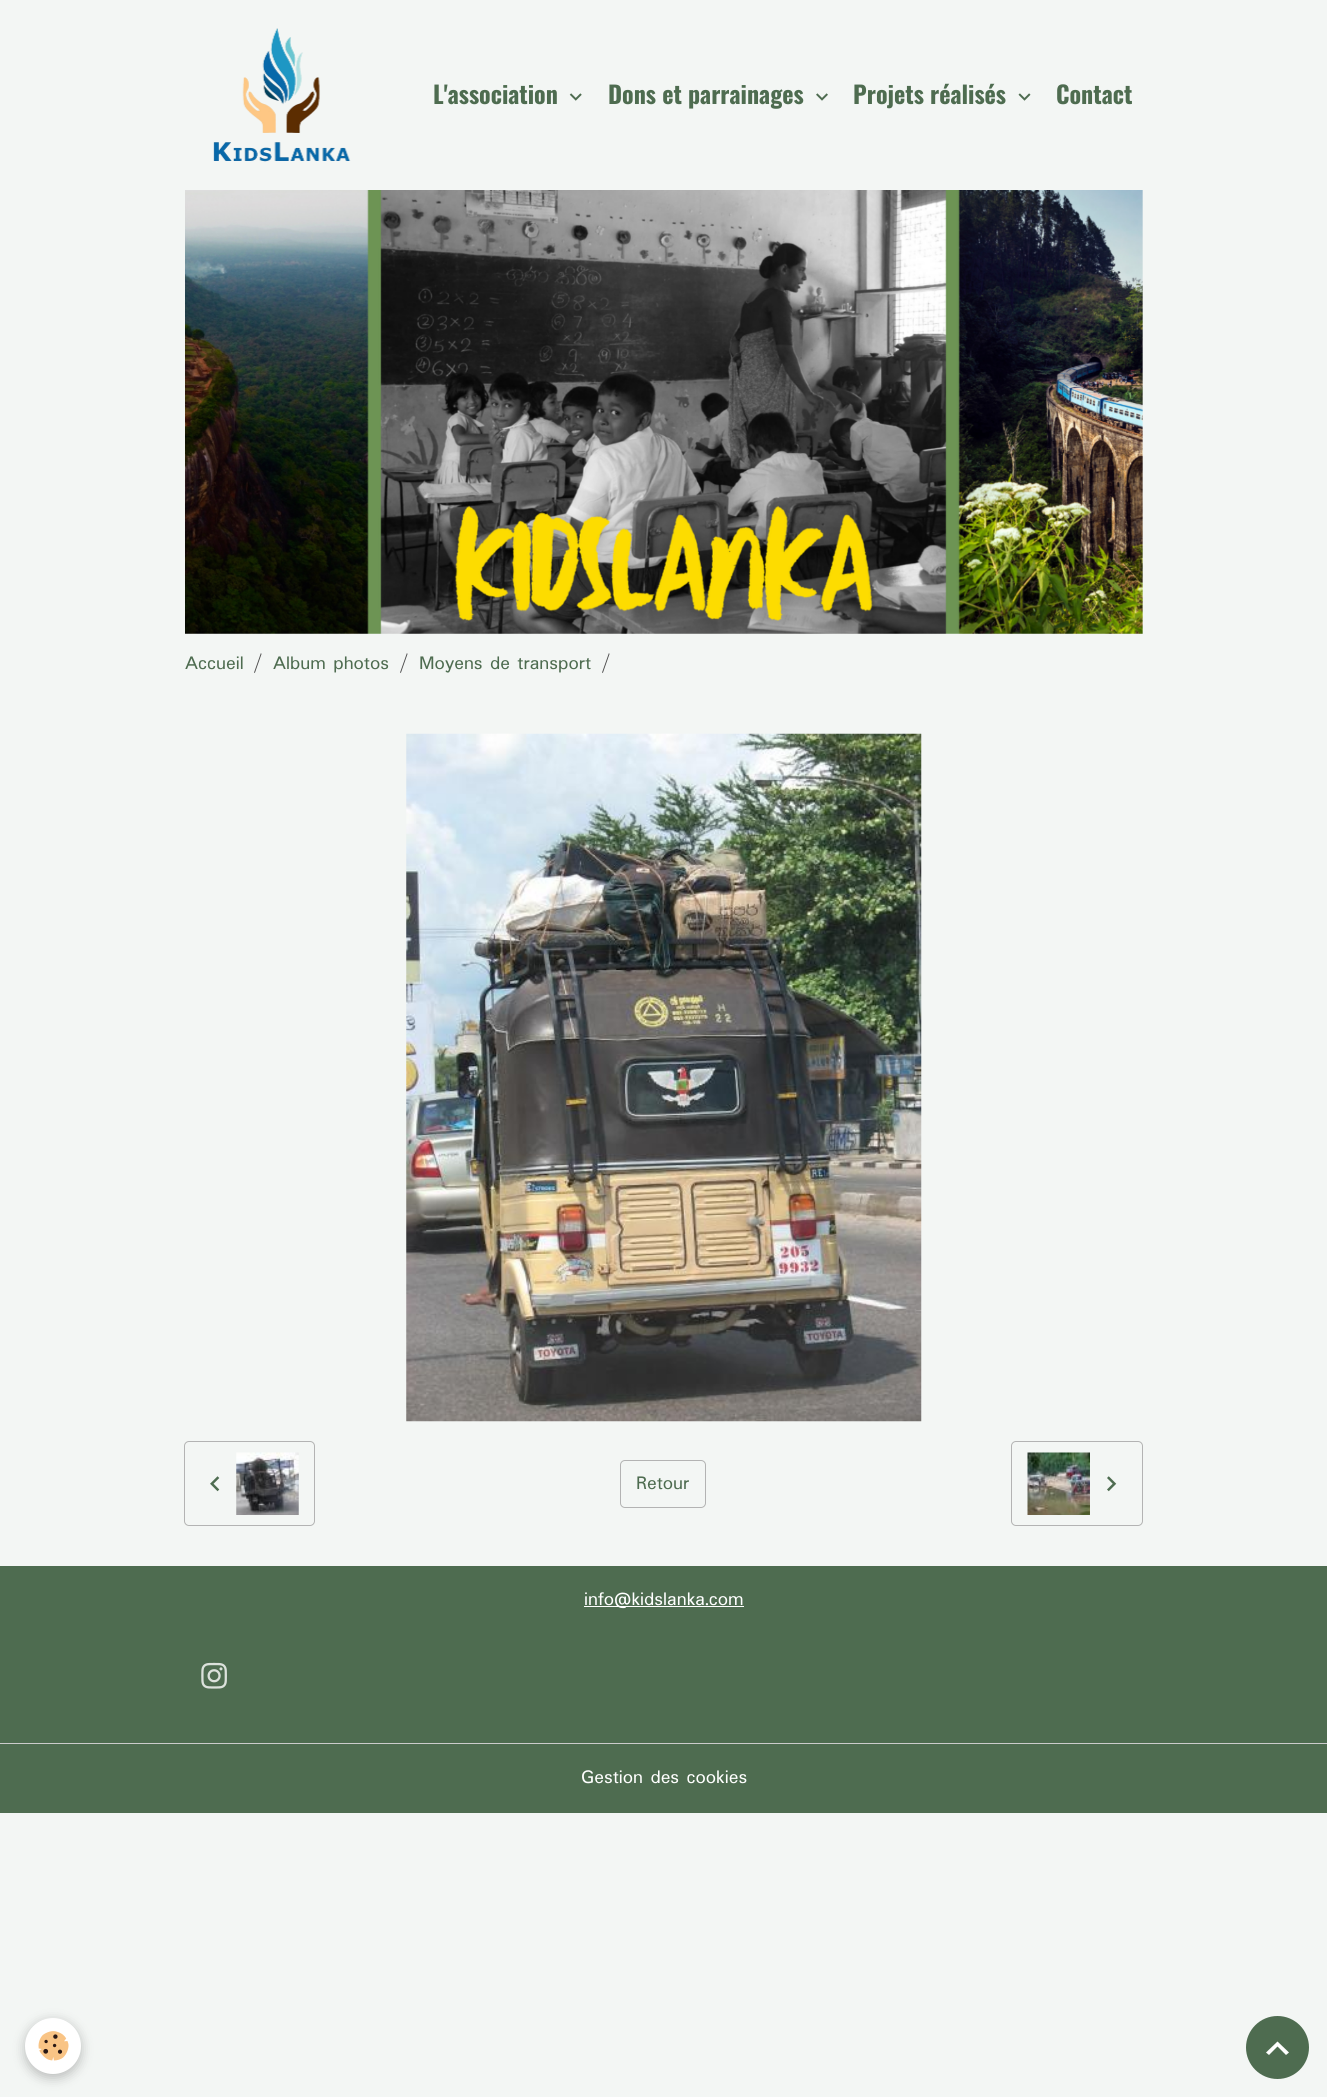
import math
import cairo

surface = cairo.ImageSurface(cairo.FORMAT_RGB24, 1327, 2097)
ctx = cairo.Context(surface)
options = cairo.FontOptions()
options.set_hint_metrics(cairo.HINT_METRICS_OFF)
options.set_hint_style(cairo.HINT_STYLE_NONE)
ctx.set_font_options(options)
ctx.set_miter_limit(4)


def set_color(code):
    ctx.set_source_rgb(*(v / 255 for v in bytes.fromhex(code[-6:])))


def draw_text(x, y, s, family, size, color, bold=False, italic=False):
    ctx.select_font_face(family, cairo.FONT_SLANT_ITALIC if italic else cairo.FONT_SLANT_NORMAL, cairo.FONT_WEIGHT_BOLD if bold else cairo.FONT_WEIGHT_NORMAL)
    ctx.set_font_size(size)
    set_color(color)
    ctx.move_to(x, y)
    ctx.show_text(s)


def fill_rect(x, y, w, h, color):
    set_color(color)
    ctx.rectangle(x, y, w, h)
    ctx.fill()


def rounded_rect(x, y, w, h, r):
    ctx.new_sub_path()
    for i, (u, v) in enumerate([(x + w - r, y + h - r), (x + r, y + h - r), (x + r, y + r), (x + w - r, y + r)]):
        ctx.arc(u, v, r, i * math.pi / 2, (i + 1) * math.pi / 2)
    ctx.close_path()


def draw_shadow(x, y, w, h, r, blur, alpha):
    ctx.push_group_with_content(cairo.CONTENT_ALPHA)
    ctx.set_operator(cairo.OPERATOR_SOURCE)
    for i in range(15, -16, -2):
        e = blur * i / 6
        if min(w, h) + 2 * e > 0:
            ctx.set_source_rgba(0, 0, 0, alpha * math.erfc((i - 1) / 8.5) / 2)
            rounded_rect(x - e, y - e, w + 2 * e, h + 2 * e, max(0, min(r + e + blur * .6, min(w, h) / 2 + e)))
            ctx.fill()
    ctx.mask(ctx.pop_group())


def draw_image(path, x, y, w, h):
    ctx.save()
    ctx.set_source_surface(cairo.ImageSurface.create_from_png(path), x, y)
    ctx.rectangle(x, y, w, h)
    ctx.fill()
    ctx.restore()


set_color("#f3f6f4")
ctx.paint()
draw_image("assets/img1.png", 213, 28, 138, 134)
draw_text(433, 104, "L'association", "Oswald", 24, "#4e6c50", bold=True)
draw_image("assets/img2.png", 569, 93, 13, 8)
draw_text(608, 104, "Dons et parrainages", "Oswald", 24, "#4e6c50", bold=True)
draw_image("assets/img3.png", 816, 93, 12, 8)
draw_text(853, 104, "Projets réalisés", "Oswald", 24, "#4e6c50", bold=True)
draw_image("assets/img4.png", 1018, 93, 13, 8)
draw_text(1056, 104, "Contact", "Oswald", 24, "#4e6c50", bold=True)
draw_image("assets/img5.png", 185, 190, 958, 444)
draw_text(185, 669, "Accueil", "Padauk", 20, "#4e6c50")
draw_text(253, 669, "/", "Padauk", 20, "#4d4d4d")
draw_text(273, 669, "Album photos", "Padauk", 20, "#4e6c50")
draw_text(399, 669, "/", "Padauk", 20, "#4d4d4d")
draw_text(419, 669, "Moyens de transport", "Padauk", 20, "#4e6c50")
draw_text(601, 669, "/", "Padauk", 20, "#4d4d4d")
draw_image("assets/img6.png", 406, 733, 516, 689)
rounded_rect(184.5, 1441.5, 130, 84, 4.5)
set_color("#b3b3b3")
ctx.set_line_width(1)
ctx.stroke()
draw_image("assets/img7.png", 210, 1476, 10, 16)
draw_image("assets/img8.png", 236, 1452, 63, 63)
rounded_rect(620.5, 1460.5, 85, 47, 4.5)
ctx.stroke()
draw_text(636, 1489, "Retour", "Padauk", 20, "#4e6c50")
rounded_rect(1011.5, 1441.5, 131, 84, 4.5)
set_color("#b3b3b3")
ctx.stroke()
draw_image("assets/img9.png", 1027, 1452, 63, 63)
draw_image("assets/img10.png", 1107, 1476, 10, 16)
fill_rect(0, 1566, 1327, 247, "#4e6c50")
fill_rect(584, 1606, 160, 1, "#ffffff")
draw_text(584, 1605, "info@kidslanka.com", "Padauk", 20, "#ffffff")
draw_image("assets/img11.png", 201, 1662, 26, 27)
fill_rect(0, 1743, 1327, 1, "#cccccc")
draw_text(581, 1783, "Gestion des cookies", "Padauk", 20, "#ffffff")
set_color("#000000")
draw_shadow(25, 2021, 56, 57, 28, 6, 0.24)
set_color("#ffffff")
ctx.arc(53, 2046, 28, 0, 2 * math.pi)
ctx.fill()
draw_image("assets/img12.png", 38, 2031, 31, 30)
set_color("#4e6c50")
ctx.arc(1277.5, 2047.5, 31.5, 0, 2 * math.pi)
ctx.fill()
set_color("#ffffff")
ctx.new_path()
ctx.move_to(1277.5, 2041.5)
ctx.line_to(1289, 2052.5)
ctx.line_to(1286, 2055)
ctx.line_to(1277.5, 2046.5)
ctx.line_to(1269, 2055)
ctx.line_to(1266, 2052.5)
ctx.close_path()
ctx.fill()
surface.write_to_png("output.png")
